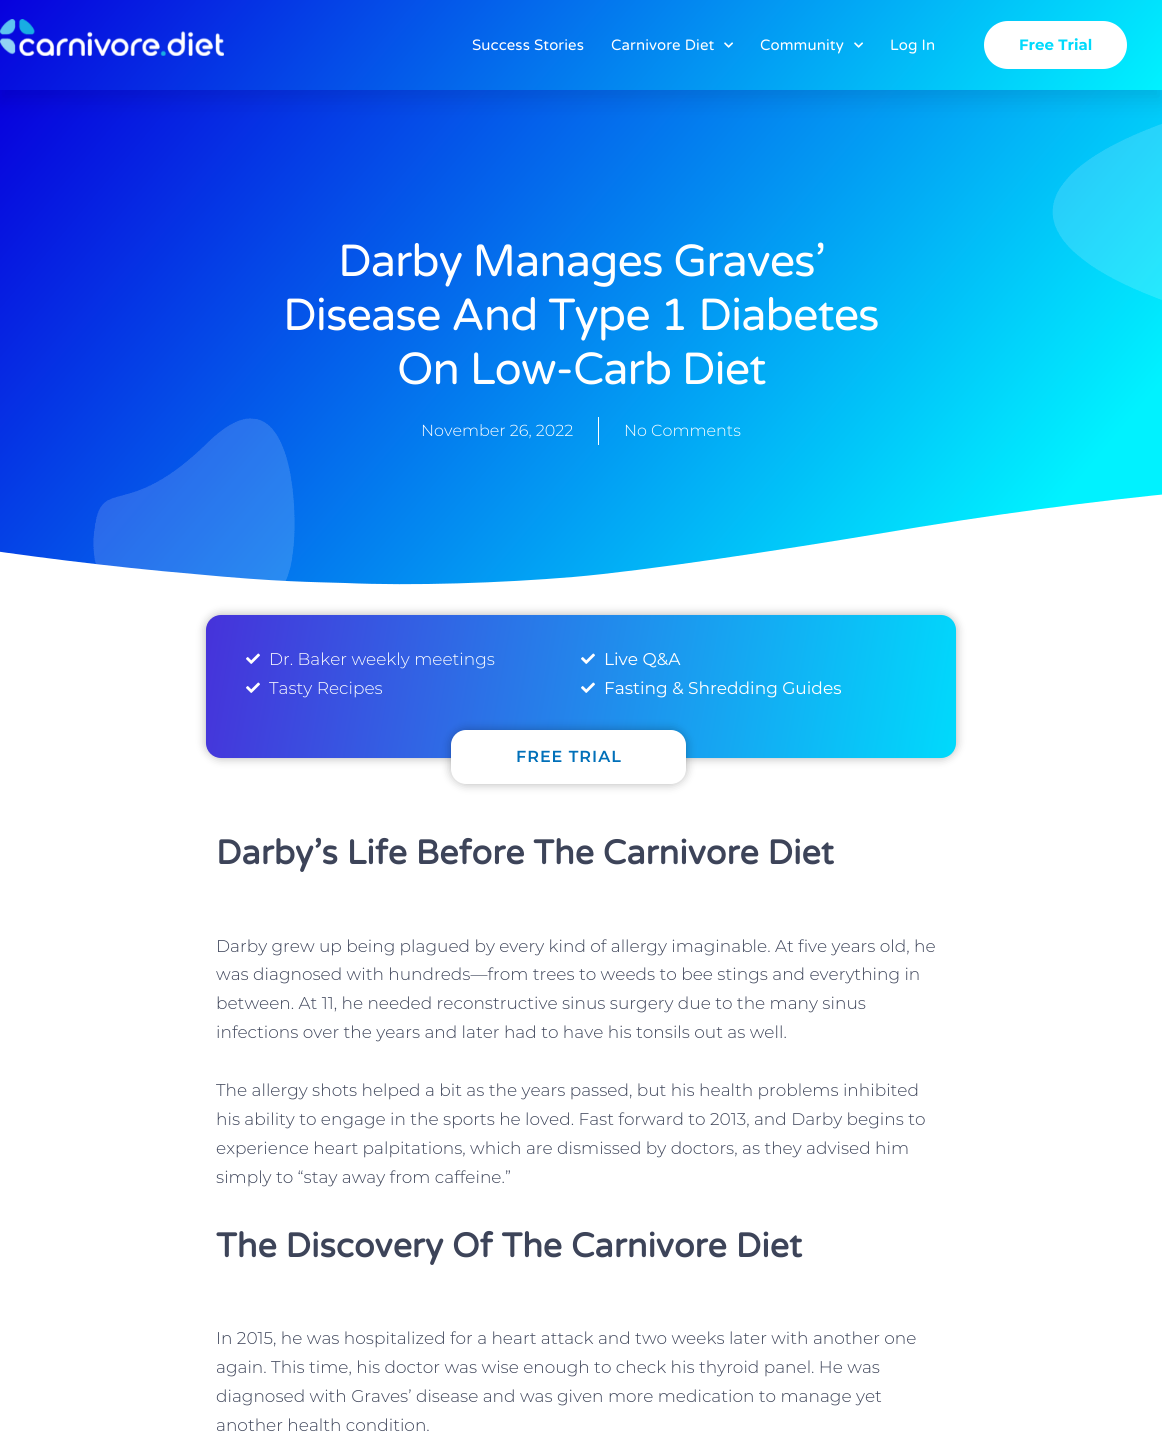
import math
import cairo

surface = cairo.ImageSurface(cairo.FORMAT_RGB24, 1162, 1442)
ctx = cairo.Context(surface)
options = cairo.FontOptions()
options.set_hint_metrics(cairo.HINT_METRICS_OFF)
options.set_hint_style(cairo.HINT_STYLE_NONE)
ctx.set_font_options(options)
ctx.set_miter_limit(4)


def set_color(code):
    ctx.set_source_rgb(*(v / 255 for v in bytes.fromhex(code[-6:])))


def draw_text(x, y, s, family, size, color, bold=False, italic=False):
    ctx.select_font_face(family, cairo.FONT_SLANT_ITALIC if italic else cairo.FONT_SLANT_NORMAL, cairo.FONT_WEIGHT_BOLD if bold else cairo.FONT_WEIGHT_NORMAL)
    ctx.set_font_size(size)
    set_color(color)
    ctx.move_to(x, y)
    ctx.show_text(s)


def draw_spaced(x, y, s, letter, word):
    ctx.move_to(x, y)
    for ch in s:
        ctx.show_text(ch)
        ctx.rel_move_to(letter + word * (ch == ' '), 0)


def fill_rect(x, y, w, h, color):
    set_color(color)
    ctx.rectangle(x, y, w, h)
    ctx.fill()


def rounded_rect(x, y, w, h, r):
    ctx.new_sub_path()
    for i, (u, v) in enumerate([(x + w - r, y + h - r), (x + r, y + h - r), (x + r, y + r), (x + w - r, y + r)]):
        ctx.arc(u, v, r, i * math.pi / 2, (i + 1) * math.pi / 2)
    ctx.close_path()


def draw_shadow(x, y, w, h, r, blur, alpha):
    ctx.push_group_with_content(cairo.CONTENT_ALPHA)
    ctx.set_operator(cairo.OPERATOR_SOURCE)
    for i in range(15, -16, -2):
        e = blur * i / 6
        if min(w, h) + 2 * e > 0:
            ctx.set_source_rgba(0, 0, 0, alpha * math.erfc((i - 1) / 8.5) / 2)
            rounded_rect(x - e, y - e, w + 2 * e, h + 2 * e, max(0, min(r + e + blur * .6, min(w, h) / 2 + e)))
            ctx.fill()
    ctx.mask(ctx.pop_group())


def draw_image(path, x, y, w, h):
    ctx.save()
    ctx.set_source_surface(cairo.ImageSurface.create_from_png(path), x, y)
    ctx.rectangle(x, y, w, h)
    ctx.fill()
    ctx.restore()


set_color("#ffffff")
ctx.paint()
gradient = cairo.LinearGradient(117, -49, 1045, 729)
gradient.add_color_stop_rgba(0, 0.027, 0, 0.867, 1)
gradient.add_color_stop_rgba(0.89, 0, 0.949, 1, 1)
ctx.set_source(gradient)
ctx.rectangle(0, 90, 1162, 495)
ctx.fill()
draw_image("assets/img4.png", 93, 124, 1069, 457)
set_color("#000000")
draw_shadow(0, 10, 1162, 90, 0, 10, 0.1)
gradient = cairo.LinearGradient(218, -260, 944, 350)
gradient.add_color_stop_rgba(0, 0.027, 0, 0.867, 1)
gradient.add_color_stop_rgba(1, 0, 0.949, 1, 1)
ctx.set_source(gradient)
ctx.rectangle(0, 0, 1162, 90)
ctx.fill()
draw_image("assets/img1.png", 0, 19, 224, 37)
ctx.select_font_face("Varela Round")
ctx.set_font_size(15)
set_color("#ffffff")
draw_spaced(472, 50, "Success Stories", 0.1, 0)
draw_spaced(611, 50, "Carnivore Diet", 0.1, 0)
draw_image("assets/img2.png", 724, 42, 9, 6)
draw_spaced(760, 50, "Community", 0.1, 0)
draw_image("assets/img3.png", 854, 42, 9, 6)
draw_spaced(890, 50, "Log In", 0.1, 0)
rounded_rect(984, 21, 143, 48, 24)
ctx.fill()
draw_text(1019, 50, "Free Trial", "Montserrat", 15, "#00dafc", bold=True)
ctx.select_font_face("Varela Round")
ctx.set_font_size(45)
set_color("#ffffff")
draw_spaced(338, 276, "Darby Manages Graves’", -1, 0)
draw_spaced(283, 330, "Disease And Type 1 Diabetes", -1, 0)
draw_spaced(397, 384, "On Low-Carb Diet", -1, 0)
draw_text(421, 436, "November 26, 2022", "Montserrat Light", 16, "#ffffff")
fill_rect(598, 417, 1, 28, "#ffffff")
draw_text(624, 436, "No Comments", "Montserrat Light", 16, "#ffffff")
ctx.new_path()
ctx.move_to(345, 583)
ctx.curve_to(413, 586, 501, 583, 573, 577)
ctx.curve_to(644, 571, 787, 549, 877, 534)
ctx.curve_to(1106, 495, 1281, 481, 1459, 474)
ctx.curve_to(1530, 472, 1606, 470, 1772, 477)
ctx.curve_to(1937, 485, 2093, 508, 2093, 508)
ctx.line_to(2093, 591)
ctx.line_to(-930, 591)
ctx.line_to(-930, 555)
ctx.curve_to(-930, 555, -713, 516, -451, 518)
ctx.curve_to(-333, 519, -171, 526, -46, 545)
ctx.curve_to(18, 555, 111, 567, 194, 574)
ctx.curve_to(277, 582, 314, 582, 345, 583)
ctx.close_path()
ctx.fill()
set_color("#000000")
draw_shadow(206, 615, 750, 143, 15, 5, 0.3)
gradient = cairo.LinearGradient(205, 620, 957, 753)
gradient.add_color_stop_rgba(0, 0.275, 0.196, 0.855, 1)
gradient.add_color_stop_rgba(1, 0, 0.855, 0.988, 1)
ctx.set_source(gradient)
rounded_rect(206, 615, 750, 143, 15)
ctx.fill()
draw_image("assets/img5.png", 246, 653, 14, 11)
draw_text(269, 665, "Dr. Baker weekly meetings", "Montserrat Light", 17, "#ffffff")
draw_image("assets/img6.png", 246, 682, 14, 11)
draw_text(269, 694, "Tasty Recipes", "Montserrat Light", 17, "#ffffff")
set_color("#000000")
draw_shadow(451, 730, 235, 54, 15, 5, 0.3)
set_color("#ffffff")
rounded_rect(451, 730, 235, 54, 15)
ctx.fill()
ctx.select_font_face("Montserrat SemiBold")
ctx.set_font_size(16)
set_color("#0170b9")
draw_spaced(516, 762, "FREE TRIAL", 1, 0)
draw_image("assets/img7.png", 581, 653, 14, 11)
draw_text(604, 665, "Live Q&A", "Montserrat", 17, "#ffffff")
draw_image("assets/img8.png", 581, 682, 14, 11)
draw_text(604, 694, "Fasting & Shredding Guides", "Montserrat", 17, "#ffffff")
draw_text(216, 864, "Darby’s Life Before The Carnivore Diet", "Varela Round", 34, "#3d4459", bold=True)
draw_text(216, 952, "Darby grew up being plagued by every kind of allergy imaginable. At five years old, he", "Montserrat Light", 17, "#3d4459")
draw_text(216, 980, "was diagnosed with hundreds—from trees to weeds to bee stings and everything in", "Montserrat Light", 17, "#3d4459")
draw_text(216, 1009, "between. At 11, he needed reconstructive sinus surgery due to the many sinus", "Montserrat Light", 17, "#3d4459")
draw_text(216, 1038, "infections over the years and later had to have his tonsils out as well.", "Montserrat Light", 17, "#3d4459")
draw_text(216, 1096, "The allergy shots helped a bit as the years passed, but his health problems inhibited", "Montserrat Light", 17, "#3d4459")
draw_text(216, 1125, "his ability to engage in the sports he loved. Fast forward to 2013, and Darby begins to", "Montserrat Light", 17, "#3d4459")
draw_text(216, 1154, "experience heart palpitations, which are dismissed by doctors, as they advised him", "Montserrat Light", 17, "#3d4459")
draw_text(216, 1183, "simply to “stay away from caffeine.”", "Montserrat Light", 17, "#3d4459")
draw_text(216, 1257, "The Discovery Of The Carnivore Diet", "Varela Round", 34, "#3d4459", bold=True)
draw_text(216, 1344, "In 2015, he was hospitalized for a heart attack and two weeks later with another one", "Montserrat Light", 17, "#3d4459")
draw_text(216, 1373, "again. This time, his doctor was wise enough to check his thyroid panel. He was", "Montserrat Light", 17, "#3d4459")
draw_text(216, 1402, "diagnosed with Graves’ disease and was given more medication to manage yet", "Montserrat Light", 17, "#3d4459")
draw_text(216, 1431, "another health condition.", "Montserrat Light", 17, "#3d4459")
surface.write_to_png("output.png")
